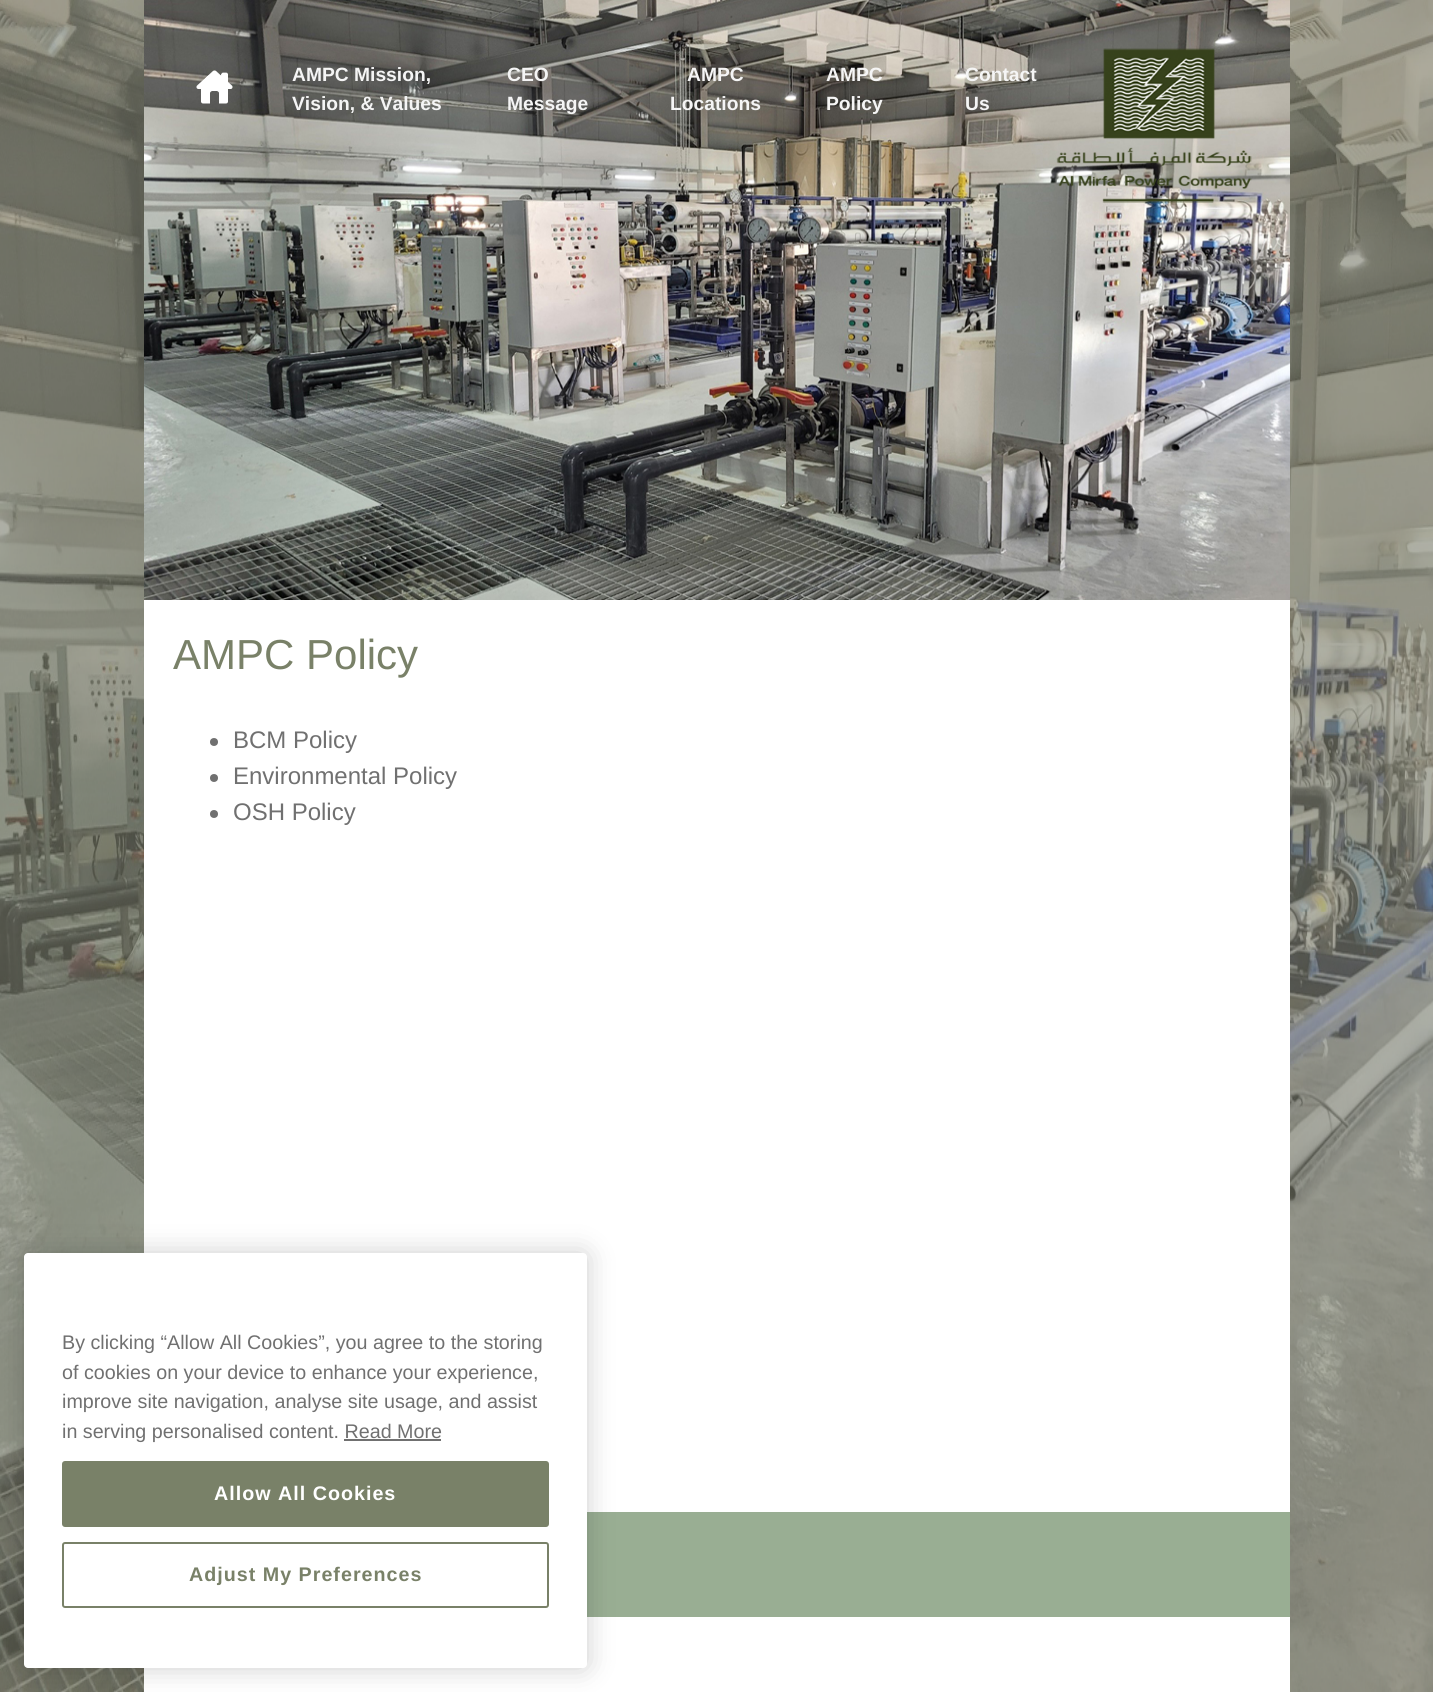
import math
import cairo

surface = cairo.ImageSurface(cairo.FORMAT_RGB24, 1433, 1692)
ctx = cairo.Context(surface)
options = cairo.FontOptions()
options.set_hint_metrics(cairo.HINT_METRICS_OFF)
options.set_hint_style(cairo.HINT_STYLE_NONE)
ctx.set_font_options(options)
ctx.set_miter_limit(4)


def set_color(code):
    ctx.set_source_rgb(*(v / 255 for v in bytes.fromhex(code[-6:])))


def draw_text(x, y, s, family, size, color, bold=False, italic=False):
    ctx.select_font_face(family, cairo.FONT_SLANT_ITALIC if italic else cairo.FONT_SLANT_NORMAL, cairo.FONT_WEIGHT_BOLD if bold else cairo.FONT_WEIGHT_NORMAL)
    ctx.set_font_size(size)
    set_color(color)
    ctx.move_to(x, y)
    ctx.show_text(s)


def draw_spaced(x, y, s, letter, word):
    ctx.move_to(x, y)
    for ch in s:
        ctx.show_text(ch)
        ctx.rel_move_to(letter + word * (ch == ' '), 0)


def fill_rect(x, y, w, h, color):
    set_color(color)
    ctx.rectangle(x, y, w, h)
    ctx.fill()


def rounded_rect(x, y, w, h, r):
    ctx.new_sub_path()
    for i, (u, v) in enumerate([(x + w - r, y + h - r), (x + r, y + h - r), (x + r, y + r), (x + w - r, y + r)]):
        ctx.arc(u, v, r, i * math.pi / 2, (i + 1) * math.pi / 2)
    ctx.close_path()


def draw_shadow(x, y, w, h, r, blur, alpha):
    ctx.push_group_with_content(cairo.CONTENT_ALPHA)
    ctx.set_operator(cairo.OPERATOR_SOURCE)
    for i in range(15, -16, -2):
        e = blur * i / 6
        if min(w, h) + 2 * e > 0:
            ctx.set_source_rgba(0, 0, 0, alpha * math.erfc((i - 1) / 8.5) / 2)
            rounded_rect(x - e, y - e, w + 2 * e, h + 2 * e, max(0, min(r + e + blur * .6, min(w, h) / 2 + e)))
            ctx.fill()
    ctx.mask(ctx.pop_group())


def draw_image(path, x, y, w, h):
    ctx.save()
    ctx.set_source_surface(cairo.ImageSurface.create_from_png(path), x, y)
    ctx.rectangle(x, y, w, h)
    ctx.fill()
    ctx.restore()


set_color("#ffffff")
ctx.paint()
draw_image("assets/img1.png", 0, 0, 1433, 1692)
fill_rect(144, 600, 1146, 1092, "#ffffff")
draw_image("assets/img2.png", 144, 0, 1146, 600)
draw_image("assets/img3.png", 196, 70, 37, 34)
draw_text(292, 81, "AMPC Mission,", "Liberation Sans", 19.25, "#f5f5f5", bold=True)
draw_text(292, 110, "Vision, & Values", "Liberation Sans", 19.25, "#f5f5f5", bold=True)
draw_text(507, 81, "CEO", "Liberation Sans", 19.25, "#f5f5f5", bold=True)
draw_text(507, 110, "Message", "Liberation Sans", 19.25, "#f5f5f5", bold=True)
draw_text(687, 81, "AMPC", "Liberation Sans", 19.25, "#f5f5f5", bold=True)
draw_text(670, 110, "Locations", "Liberation Sans", 19.25, "#f5f5f5", bold=True)
draw_text(826, 81, "AMPC", "Liberation Sans", 19.25, "#f5f5f5", bold=True)
draw_text(826, 110, "Policy", "Liberation Sans", 19.25, "#f5f5f5", bold=True)
draw_text(965, 81, "Contact", "Liberation Sans", 19.25, "#f5f5f5", bold=True)
draw_text(965, 110, "Us", "Liberation Sans", 19.25, "#f5f5f5", bold=True)
draw_image("assets/img4.png", 1056, 48, 196, 155)
draw_text(173, 669, "AMPC Policy", "Liberation Sans", 42, "#798168")
set_color("#707070")
ctx.new_path()
ctx.arc(214, 742, 4, 0, 2 * math.pi)
ctx.fill()
draw_text(233, 748, "BCM Policy", "Liberation Sans", 24, "#707070")
ctx.new_path()
ctx.arc(214, 778, 4, 0, 2 * math.pi)
ctx.fill()
draw_text(233, 784, "Environmental Policy", "Liberation Sans", 24, "#707070")
ctx.new_path()
ctx.arc(214, 814, 4, 0, 2 * math.pi)
ctx.fill()
draw_text(233, 820, "OSH Policy", "Liberation Sans", 24, "#707070")
fill_rect(587, 1512, 703, 105, "#99ae93")
set_color("#000000")
draw_shadow(24, 1253, 563, 415, 4, 13.5, 0.2)
set_color("#ffffff")
rounded_rect(24, 1253, 563, 415, 4)
ctx.fill()
draw_text(62, 1349, "By clicking “Allow All Cookies”, you agree to the storing", "Liberation Sans", 19.7, "#707070")
draw_text(62, 1379, "of cookies on your device to enhance your experience,", "Liberation Sans", 19.7, "#707070")
draw_text(62, 1408, "improve site navigation, analyse site usage, and assist", "Liberation Sans", 19.7, "#707070")
draw_text(62, 1438, "in serving personalised content. Read More", "Liberation Sans", 19.7, "#707070")
fill_rect(344, 1439, 97, 2, "#707070")
set_color("#798168")
rounded_rect(63, 1462, 485, 64, 2)
ctx.fill_preserve()
ctx.stroke()
ctx.select_font_face("Liberation Sans", cairo.FONT_SLANT_NORMAL, cairo.FONT_WEIGHT_BOLD)
set_color("#ffffff")
draw_spaced(214, 1500, "Allow All Cookies", 1, 0)
rounded_rect(63, 1543, 485, 64, 2)
set_color("#798168")
ctx.stroke()
draw_spaced(189, 1581, "Adjust My Preferences", 1, 0)
surface.write_to_png("output.png")
